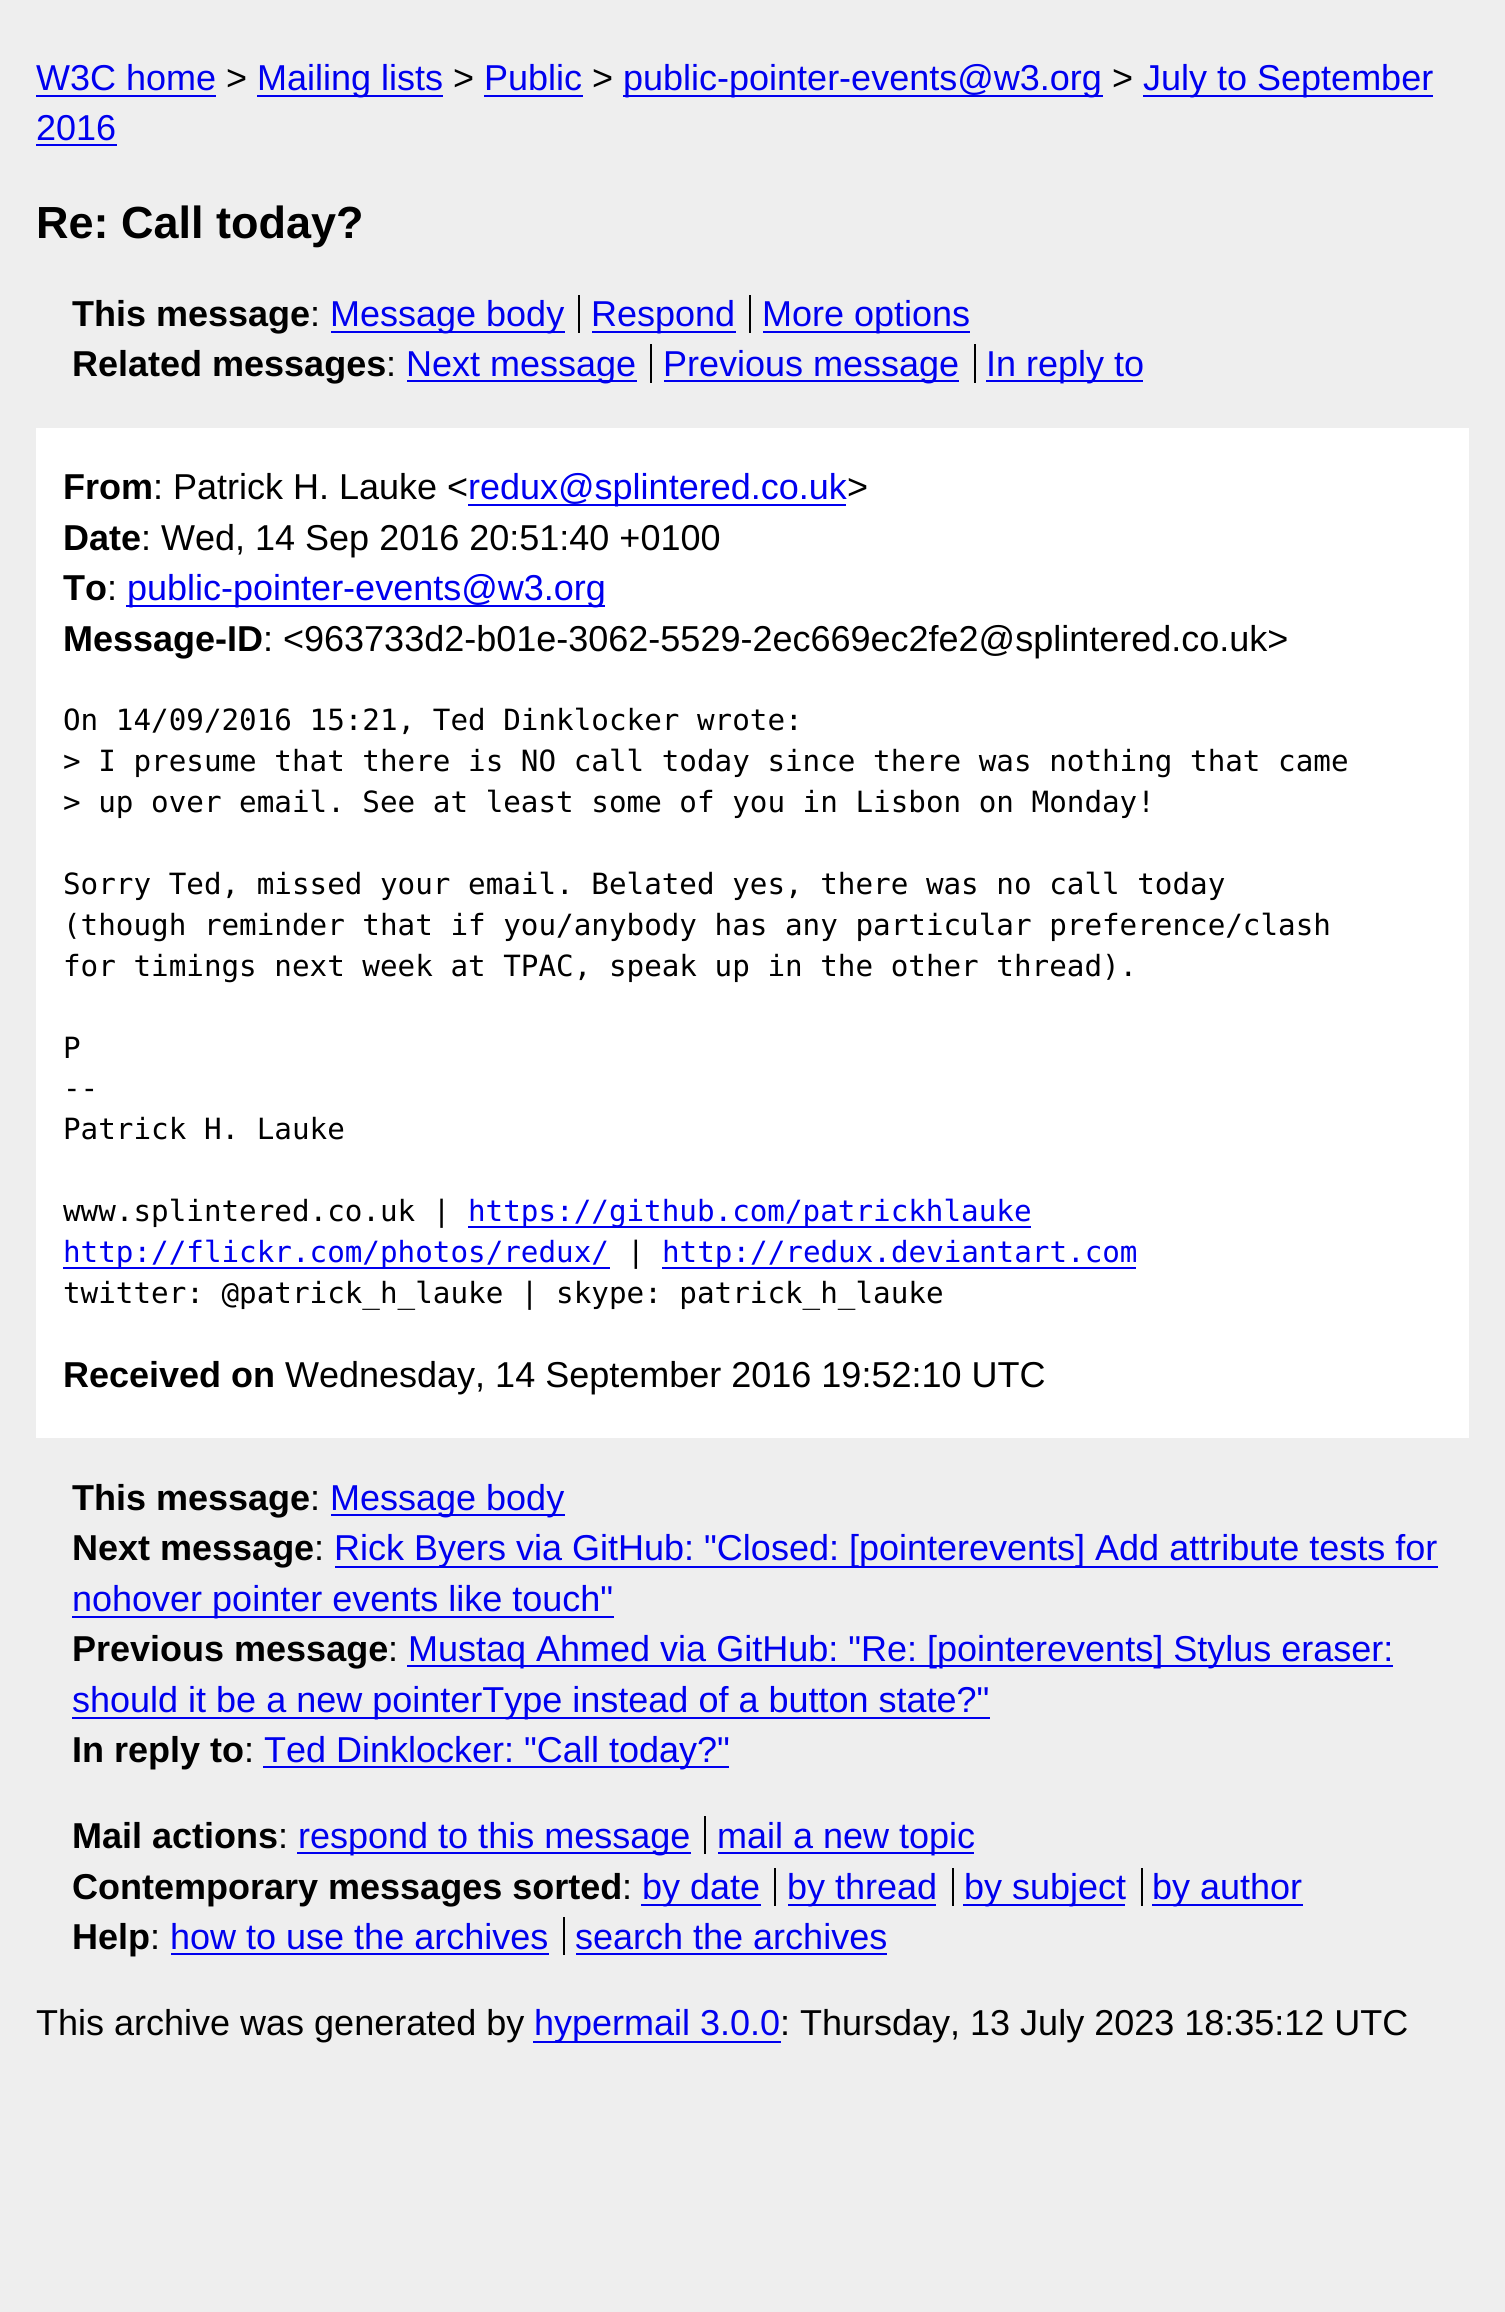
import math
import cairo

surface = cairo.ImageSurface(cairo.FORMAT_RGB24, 1505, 2312)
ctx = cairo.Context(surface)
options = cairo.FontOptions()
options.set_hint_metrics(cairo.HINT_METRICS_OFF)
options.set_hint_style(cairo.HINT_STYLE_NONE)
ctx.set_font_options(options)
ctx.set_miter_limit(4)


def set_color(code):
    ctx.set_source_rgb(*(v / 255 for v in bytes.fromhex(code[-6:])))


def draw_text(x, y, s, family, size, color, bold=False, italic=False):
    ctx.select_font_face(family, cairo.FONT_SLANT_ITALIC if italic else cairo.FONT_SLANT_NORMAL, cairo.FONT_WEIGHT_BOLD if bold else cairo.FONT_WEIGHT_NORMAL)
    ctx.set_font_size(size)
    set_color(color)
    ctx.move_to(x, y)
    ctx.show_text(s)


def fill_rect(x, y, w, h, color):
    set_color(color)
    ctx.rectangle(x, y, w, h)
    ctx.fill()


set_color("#eeeeee")
ctx.paint()
draw_text(36, 90, "W3C home", "Liberation Sans", 36, "#0000ee")
fill_rect(36, 95, 180, 2, "#0000ee")
draw_text(226, 90, ">", "Liberation Sans", 36, "#000000")
fill_rect(257, 95, 186, 2, "#0000ee")
draw_text(257, 90, "Mailing lists", "Liberation Sans", 36, "#0000ee")
draw_text(453, 90, ">", "Liberation Sans", 36, "#000000")
draw_text(484, 90, "Public", "Liberation Sans", 36, "#0000ee")
fill_rect(484, 95, 99, 2, "#0000ee")
draw_text(592, 90, ">", "Liberation Sans", 36, "#000000")
fill_rect(623, 95, 480, 2, "#0000ee")
draw_text(623, 90, "public-pointer-events@w3.org", "Liberation Sans", 36, "#0000ee")
draw_text(1112, 90, ">", "Liberation Sans", 36, "#000000")
fill_rect(1143, 95, 290, 2, "#0000ee")
draw_text(1143, 90, "July to September", "Liberation Sans", 36, "#0000ee")
draw_text(36, 140, "2016", "Liberation Sans", 36, "#0000ee")
fill_rect(36, 144, 81, 2, "#0000ee")
draw_text(36, 238, "Re: Call today?", "Liberation Sans", 45, "#000000", bold=True)
draw_text(72, 326, "This message", "Liberation Sans", 36, "#000000", bold=True)
draw_text(310, 326, ":", "Liberation Sans", 36, "#000000")
fill_rect(331, 331, 234, 2, "#0000ee")
draw_text(330, 326, "Message body", "Liberation Sans", 36, "#0000ee")
fill_rect(578, 295, 2, 38, "#000000")
fill_rect(592, 331, 144, 2, "#0000ee")
draw_text(591, 326, "Respond", "Liberation Sans", 36, "#0000ee")
fill_rect(763, 331, 207, 2, "#0000ee")
draw_text(762, 326, "More options", "Liberation Sans", 36, "#0000ee")
fill_rect(749, 295, 2, 38, "#000000")
draw_text(72, 376, "Related messages", "Liberation Sans", 36, "#000000", bold=True)
draw_text(386, 376, ":", "Liberation Sans", 36, "#000000")
fill_rect(407, 380, 230, 2, "#0000ee")
draw_text(406, 376, "Next message", "Liberation Sans", 36, "#0000ee")
fill_rect(664, 380, 295, 2, "#0000ee")
draw_text(663, 376, "Previous message", "Liberation Sans", 36, "#0000ee")
fill_rect(650, 344, 2, 39, "#000000")
fill_rect(986, 380, 157, 2, "#0000ee")
draw_text(986, 376, "In reply to", "Liberation Sans", 36, "#0000ee")
fill_rect(974, 344, 2, 39, "#000000")
fill_rect(36, 428, 1433, 1010, "#ffffff")
draw_text(63, 499, "From", "Liberation Sans", 36, "#000000", bold=True)
draw_text(153, 499, ": Patrick H. Lauke <", "Liberation Sans", 36, "#000000")
fill_rect(468, 504, 378, 2, "#0000ee")
draw_text(468, 499, "redux@splintered.co.uk", "Liberation Sans", 36, "#0000ee")
draw_text(847, 499, ">", "Liberation Sans", 36, "#000000")
draw_text(63, 550, "Date", "Liberation Sans", 36, "#000000", bold=True)
draw_text(141, 550, ": Wed, 14 Sep 2016 20:51:40 +0100", "Liberation Sans", 36, "#000000")
draw_text(63, 600, "To", "Liberation Sans", 36, "#000000", bold=True)
draw_text(107, 600, ":", "Liberation Sans", 36, "#000000")
fill_rect(126, 605, 479, 2, "#0000ee")
draw_text(127, 600, "public-pointer-events@w3.org", "Liberation Sans", 36, "#0000ee")
draw_text(63, 651, "Message-ID", "Liberation Sans", 36, "#000000", bold=True)
draw_text(263, 651, ": <963733d2-b01e-3062-5529-2ec669ec2fe2@splintered.co.uk>", "Liberation Sans", 36, "#000000")
draw_text(63, 730, "On 14/09/2016 15:21, Ted Dinklocker wrote:", "DejaVu Sans Mono", 29.25, "#000000")
draw_text(63, 771, "> I presume that there is NO call today since there was nothing that came", "DejaVu Sans Mono", 29.25, "#000000")
draw_text(63, 812, "> up over email. See at least some of you in Lisbon on Monday!", "DejaVu Sans Mono", 29.25, "#000000")
draw_text(63, 894, "Sorry Ted, missed your email. Belated yes, there was no call today", "DejaVu Sans Mono", 29.25, "#000000")
draw_text(63, 935, "(though reminder that if you/anybody has any particular preference/clash", "DejaVu Sans Mono", 29.25, "#000000")
draw_text(63, 976, "for timings next week at TPAC, speak up in the other thread).", "DejaVu Sans Mono", 29.25, "#000000")
draw_text(63, 1058, "P", "DejaVu Sans Mono", 29.25, "#000000")
draw_text(63, 1098, "--", "DejaVu Sans Mono", 29.25, "#000000")
draw_text(63, 1139, "Patrick H. Lauke", "DejaVu Sans Mono", 29.25, "#000000")
draw_text(63, 1221, "www.splintered.co.uk |", "DejaVu Sans Mono", 29.25, "#000000")
fill_rect(468, 1226, 563, 2, "#0000ee")
draw_text(468, 1221, "https://github.com/patrickhlauke", "DejaVu Sans Mono", 29.25, "#0000ee")
fill_rect(63, 1267, 547, 2, "#0000ee")
draw_text(63, 1262, "http://flickr.com/photos/redux/", "DejaVu Sans Mono", 29.25, "#0000ee")
draw_text(627, 1262, "|", "DejaVu Sans Mono", 29.25, "#000000")
fill_rect(662, 1267, 474, 2, "#0000ee")
draw_text(662, 1262, "http://redux.deviantart.com", "DejaVu Sans Mono", 29.25, "#0000ee")
draw_text(63, 1303, "twitter: @patrick_h_lauke | skype: patrick_h_lauke", "DejaVu Sans Mono", 29.25, "#000000")
draw_text(63, 1387, "Received on", "Liberation Sans", 36, "#000000", bold=True)
draw_text(285, 1387, "Wednesday, 14 September 2016 19:52:10 UTC", "Liberation Sans", 36, "#000000")
draw_text(72, 1510, "This message", "Liberation Sans", 36, "#000000", bold=True)
draw_text(310, 1510, ":", "Liberation Sans", 36, "#000000")
fill_rect(331, 1514, 234, 2, "#0000ee")
draw_text(330, 1510, "Message body", "Liberation Sans", 36, "#0000ee")
draw_text(72, 1560, "Next message", "Liberation Sans", 36, "#000000", bold=True)
draw_text(314, 1560, ":", "Liberation Sans", 36, "#000000")
fill_rect(335, 1566, 1103, 2, "#0000ee")
draw_text(334, 1560, "Rick Byers via GitHub: \"Closed: [pointerevents] Add attribute tests for", "Liberation Sans", 36, "#0000ee")
fill_rect(72, 1616, 542, 2, "#0000ee")
draw_text(72, 1611, "nohover pointer events like touch\"", "Liberation Sans", 36, "#0000ee")
draw_text(72, 1661, "Previous message", "Liberation Sans", 36, "#000000", bold=True)
draw_text(388, 1661, ":", "Liberation Sans", 36, "#000000")
fill_rect(407, 1665, 986, 2, "#0000ee")
draw_text(408, 1661, "Mustaq Ahmed via GitHub: \"Re: [pointerevents] Stylus eraser:", "Liberation Sans", 36, "#0000ee")
fill_rect(72, 1717, 918, 2, "#0000ee")
draw_text(72, 1712, "should it be a new pointerType instead of a button state?\"", "Liberation Sans", 36, "#0000ee")
draw_text(72, 1762, "In reply to", "Liberation Sans", 36, "#000000", bold=True)
draw_text(244, 1762, ":", "Liberation Sans", 36, "#000000")
fill_rect(263, 1766, 466, 2, "#0000ee")
draw_text(264, 1762, "Ted Dinklocker: \"Call today?\"", "Liberation Sans", 36, "#0000ee")
draw_text(72, 1848, "Mail actions", "Liberation Sans", 36, "#000000", bold=True)
draw_text(278, 1848, ":", "Liberation Sans", 36, "#000000")
fill_rect(297, 1852, 394, 2, "#0000ee")
draw_text(298, 1848, "respond to this message", "Liberation Sans", 36, "#0000ee")
fill_rect(718, 1852, 256, 2, "#0000ee")
draw_text(717, 1848, "mail a new topic", "Liberation Sans", 36, "#0000ee")
fill_rect(704, 1816, 2, 38, "#000000")
draw_text(72, 1899, "Contemporary messages sorted", "Liberation Sans", 36, "#000000", bold=True)
draw_text(622, 1899, ":", "Liberation Sans", 36, "#000000")
fill_rect(641, 1904, 120, 2, "#0000ee")
draw_text(642, 1899, "by date", "Liberation Sans", 36, "#0000ee")
fill_rect(788, 1904, 148, 2, "#0000ee")
draw_text(787, 1899, "by thread", "Liberation Sans", 36, "#0000ee")
fill_rect(774, 1868, 2, 38, "#000000")
fill_rect(963, 1904, 162, 2, "#0000ee")
draw_text(964, 1899, "by subject", "Liberation Sans", 36, "#0000ee")
fill_rect(952, 1868, 2, 38, "#000000")
fill_rect(1152, 1904, 151, 2, "#0000ee")
draw_text(1152, 1899, "by author", "Liberation Sans", 36, "#0000ee")
fill_rect(1141, 1868, 2, 38, "#000000")
draw_text(72, 1949, "Help", "Liberation Sans", 36, "#000000", bold=True)
draw_text(150, 1949, ":", "Liberation Sans", 36, "#000000")
draw_text(170, 1949, "how to use the archives", "Liberation Sans", 36, "#0000ee")
fill_rect(171, 1953, 378, 2, "#0000ee")
draw_text(575, 1949, "search the archives", "Liberation Sans", 36, "#0000ee")
fill_rect(563, 1917, 2, 38, "#000000")
fill_rect(576, 1953, 311, 2, "#0000ee")
draw_text(36, 2035, "This archive was generated by", "Liberation Sans", 36, "#000000")
fill_rect(533, 2041, 248, 2, "#0000ee")
draw_text(534, 2035, "hypermail 3.0.0", "Liberation Sans", 36, "#0000ee")
draw_text(780, 2035, ": Thursday, 13 July 2023 18:35:12 UTC", "Liberation Sans", 36, "#000000")
surface.write_to_png("output.png")
